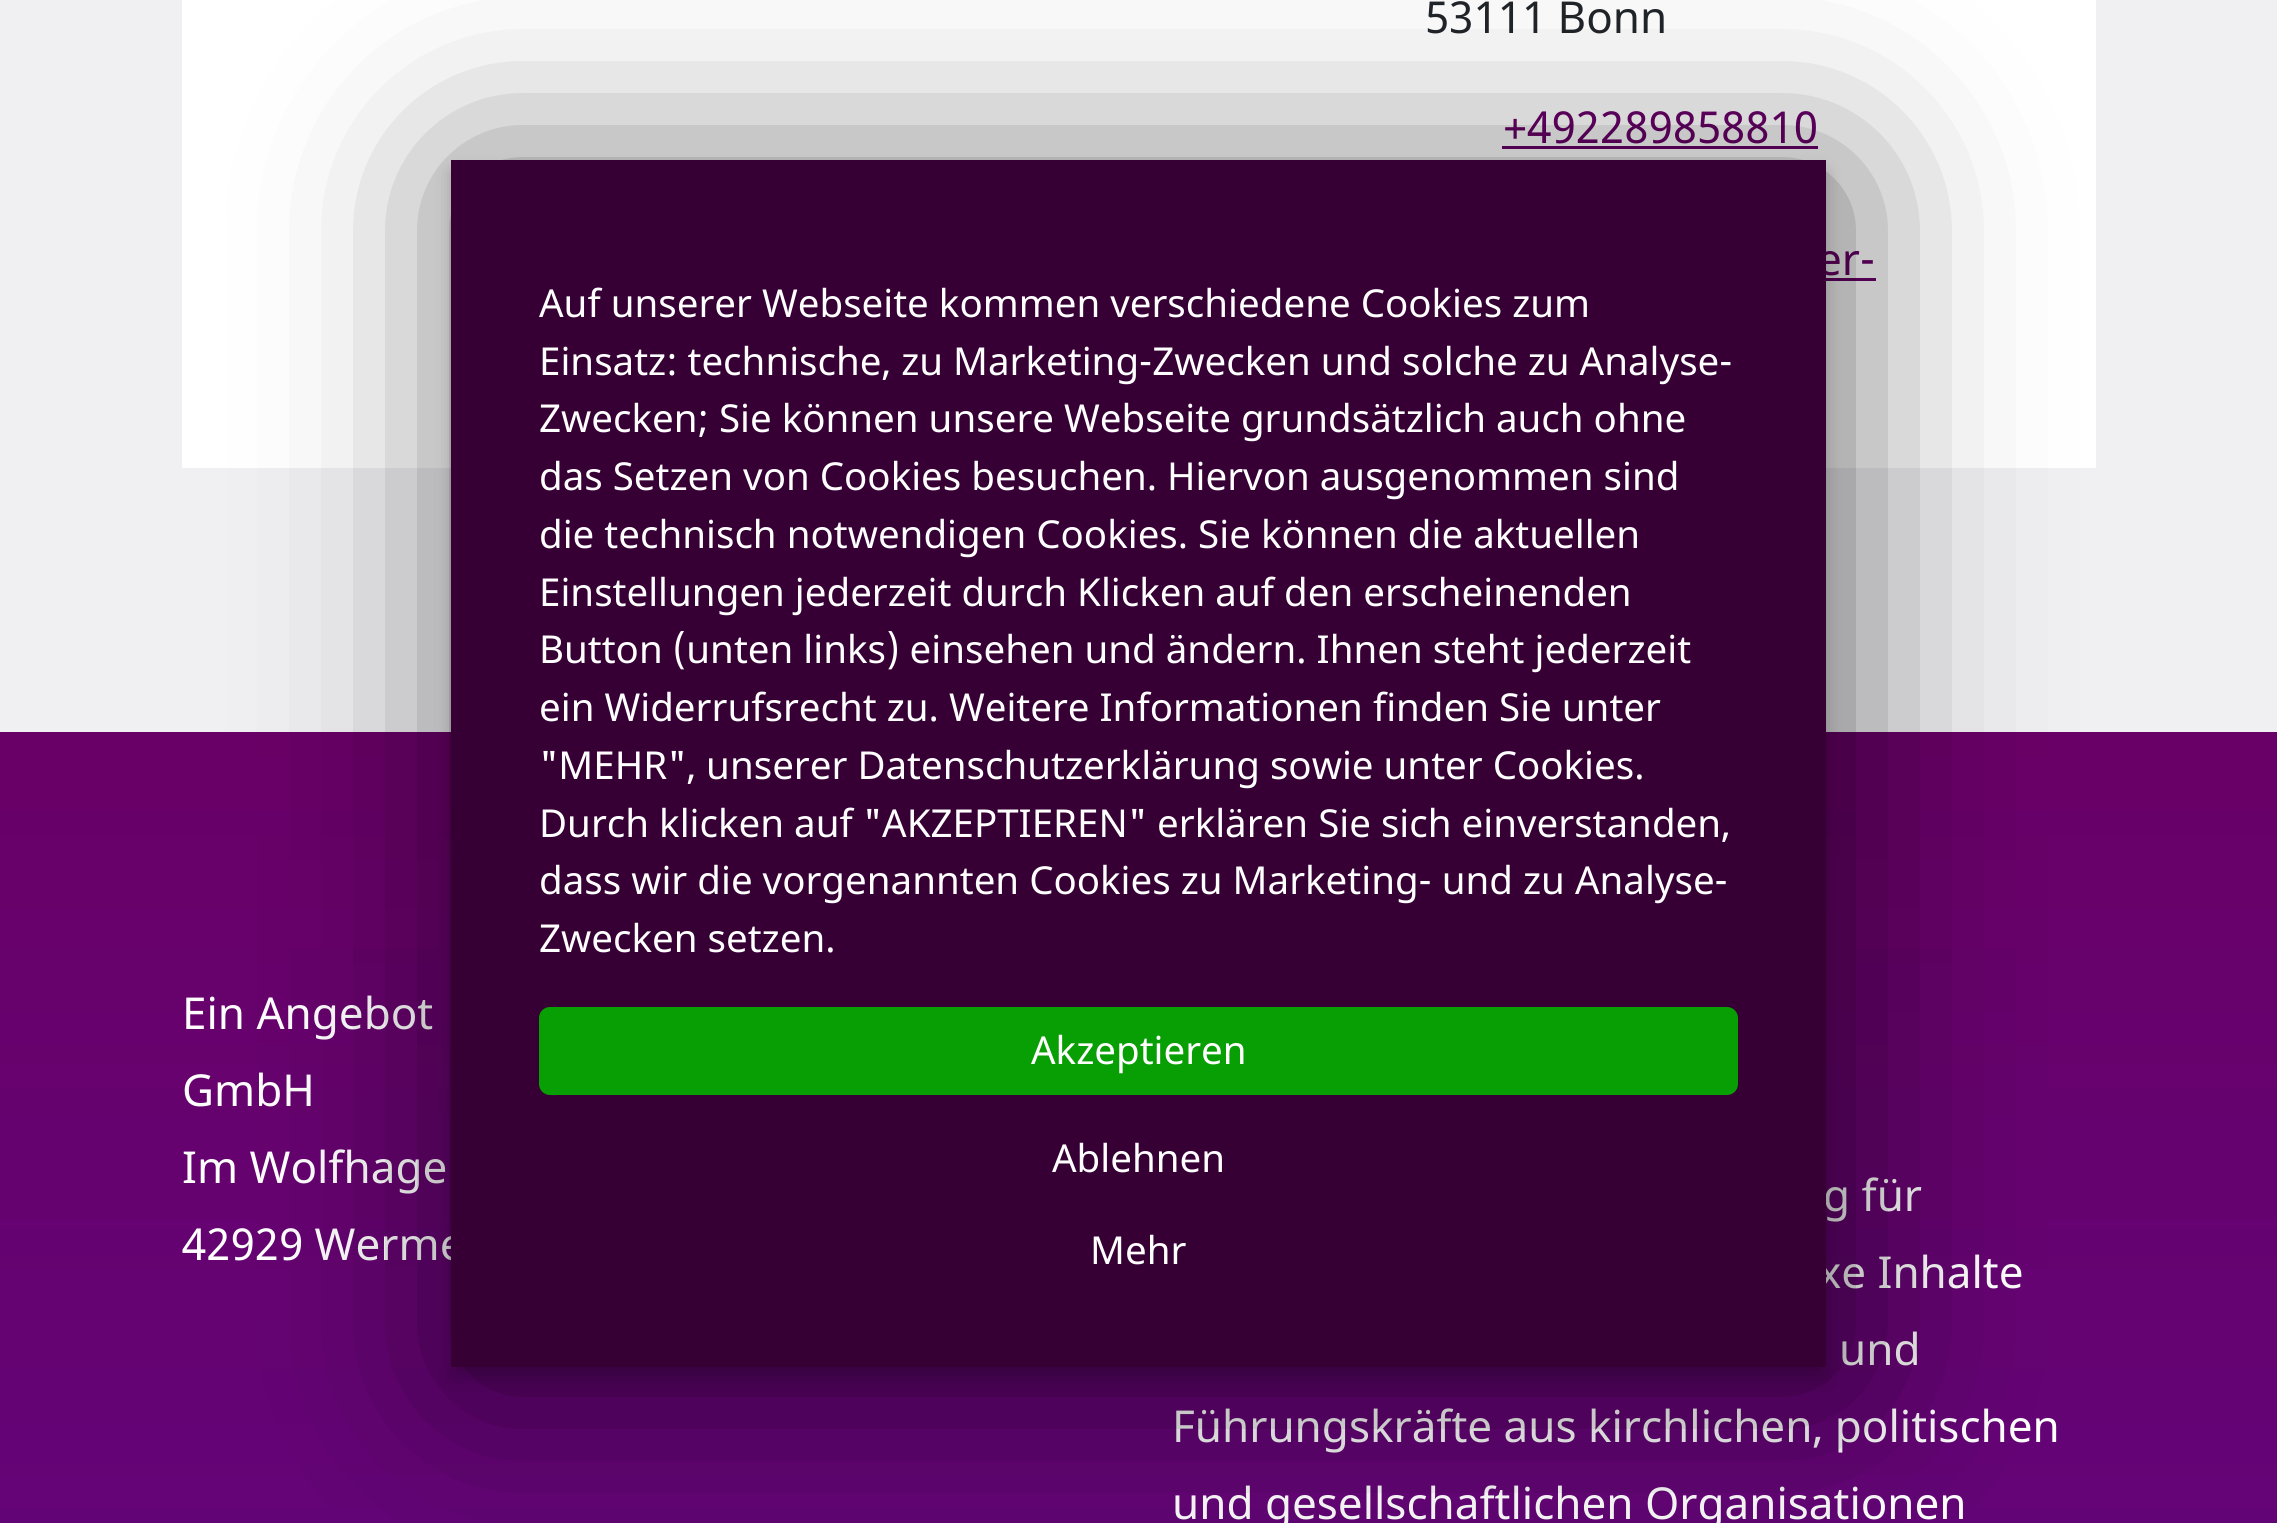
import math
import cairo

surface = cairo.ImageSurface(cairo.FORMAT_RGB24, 2277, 1523)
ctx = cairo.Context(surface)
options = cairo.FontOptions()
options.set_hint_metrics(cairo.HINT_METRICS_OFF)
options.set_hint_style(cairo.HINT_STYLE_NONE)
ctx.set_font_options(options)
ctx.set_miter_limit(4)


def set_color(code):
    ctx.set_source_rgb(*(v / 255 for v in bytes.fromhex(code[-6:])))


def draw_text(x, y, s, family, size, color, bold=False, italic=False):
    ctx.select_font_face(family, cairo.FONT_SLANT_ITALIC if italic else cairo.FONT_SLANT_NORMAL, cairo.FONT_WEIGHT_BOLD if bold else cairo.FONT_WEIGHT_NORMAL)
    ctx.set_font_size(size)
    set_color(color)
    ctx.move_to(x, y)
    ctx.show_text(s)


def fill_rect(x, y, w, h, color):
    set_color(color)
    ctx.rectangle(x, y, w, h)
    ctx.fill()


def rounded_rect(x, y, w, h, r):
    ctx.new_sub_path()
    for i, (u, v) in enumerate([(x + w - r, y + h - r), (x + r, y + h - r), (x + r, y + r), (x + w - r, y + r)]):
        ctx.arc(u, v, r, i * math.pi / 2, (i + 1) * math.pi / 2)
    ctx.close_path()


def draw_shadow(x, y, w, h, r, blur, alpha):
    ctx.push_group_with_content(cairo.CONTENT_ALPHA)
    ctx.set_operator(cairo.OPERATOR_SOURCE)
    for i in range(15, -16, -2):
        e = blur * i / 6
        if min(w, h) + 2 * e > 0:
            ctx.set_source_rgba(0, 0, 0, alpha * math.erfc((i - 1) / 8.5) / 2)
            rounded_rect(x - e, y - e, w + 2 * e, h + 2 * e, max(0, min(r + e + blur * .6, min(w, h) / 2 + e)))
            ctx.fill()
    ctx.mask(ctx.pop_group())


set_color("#f0f0f3")
ctx.paint()
fill_rect(182, 0, 1914, 468, "#ffffff")
draw_text(1425, 33, "53111 Bonn", "Noto Sans", 44, "#212529")
draw_text(1503, 143, "+492289858810", "Noto Sans", 44, "#690067")
fill_rect(1502, 146, 316, 3, "#690067")
draw_text(1817, 275, "er-", "Noto Sans", 44, "#690067")
fill_rect(1826, 278, 50, 3, "#690067")
gradient = cairo.LinearGradient(1139, 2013, 1139, 732)
gradient.add_color_stop_rgba(0, 0.376, 0.024, 0.502, 1)
gradient.add_color_stop_rgba(1, 0.412, 0, 0.404, 1)
ctx.set_source(gradient)
ctx.rectangle(0, 732, 2277, 791)
ctx.fill()
draw_text(182, 1029, "Ein Angebot", "Noto Sans", 44, "#ffffff")
draw_text(182, 1106, "GmbH", "Noto Sans", 44, "#ffffff")
draw_text(182, 1183, "Im Wolfhage", "Noto Sans", 44, "#ffffff")
draw_text(182, 1260, "42929 Werme", "Noto Sans", 44, "#ffffff")
draw_text(1823, 1211, "g für", "Noto Sans", 44, "#ffffff")
draw_text(1818, 1288, "xe Inhalte", "Noto Sans", 44, "#ffffff")
draw_text(1839, 1365, "und", "Noto Sans", 44, "#ffffff")
draw_text(1172, 1442, "Führungskräfte aus kirchlichen, politischen", "Noto Sans", 44, "#ffffff")
draw_text(1172, 1519, "und gesellschaftlichen Organisationen", "Noto Sans", 44, "#ffffff")
set_color("#000000")
draw_shadow(465, 173, 1375, 1208, 0, 96, 0.59)
draw_shadow(451, 171, 1375, 1207, 0, 8, 0.2)
fill_rect(451, 160, 1375, 1207, "#360035")
draw_text(539, 317, "Auf unserer Webseite kommen verschiedene Cookies zum", "Noto Sans", 38.5, "#ffffff")
draw_text(539, 375, "Einsatz: technische, zu Marketing-Zwecken und solche zu Analyse-", "Noto Sans", 38.5, "#ffffff")
draw_text(539, 432, "Zwecken; Sie können unsere Webseite grundsätzlich auch ohne", "Noto Sans", 38.5, "#ffffff")
draw_text(539, 490, "das Setzen von Cookies besuchen. Hiervon ausgenommen sind", "Noto Sans", 38.5, "#ffffff")
draw_text(539, 548, "die technisch notwendigen Cookies. Sie können die aktuellen", "Noto Sans", 38.5, "#ffffff")
draw_text(539, 606, "Einstellungen jederzeit durch Klicken auf den erscheinenden", "Noto Sans", 38.5, "#ffffff")
draw_text(539, 663, "Button (unten links) einsehen und ändern. Ihnen steht jederzeit", "Noto Sans", 38.5, "#ffffff")
draw_text(539, 721, "ein Widerrufsrecht zu. Weitere Informationen finden Sie unter", "Noto Sans", 38.5, "#ffffff")
draw_text(539, 779, "\"MEHR\", unserer Datenschutzerklärung sowie unter Cookies.", "Noto Sans", 38.5, "#ffffff")
draw_text(539, 837, "Durch klicken auf \"AKZEPTIEREN\" erklären Sie sich einverstanden,", "Noto Sans", 38.5, "#ffffff")
draw_text(539, 894, "dass wir die vorgenannten Cookies zu Marketing- und zu Analyse-", "Noto Sans", 38.5, "#ffffff")
draw_text(539, 952, "Zwecken setzen.", "Noto Sans", 38.5, "#ffffff")
set_color("#089f04")
rounded_rect(539, 1007, 1199, 88, 11)
ctx.fill()
draw_text(1031, 1064, "Akzeptieren", "Noto Sans", 38.5, "#ffffff")
draw_text(1052, 1172, "Ablehnen", "Noto Sans", 38.5, "#ffffff")
draw_text(1090, 1264, "Mehr", "Noto Sans", 38.5, "#ffffff")
surface.write_to_png("output.png")
